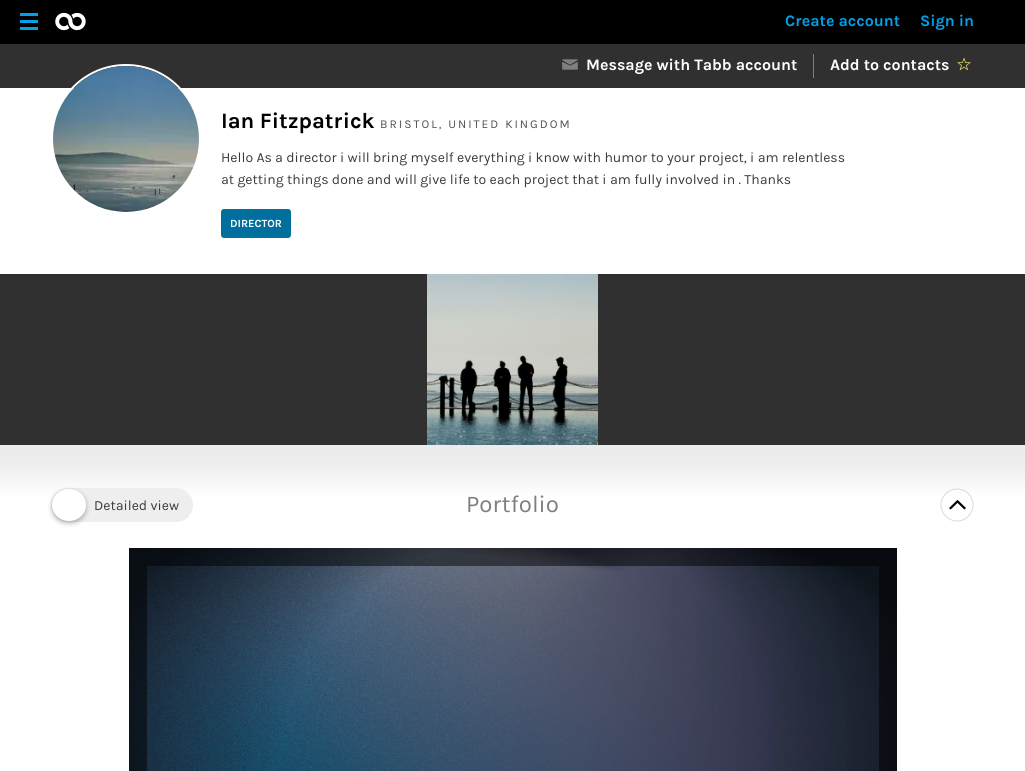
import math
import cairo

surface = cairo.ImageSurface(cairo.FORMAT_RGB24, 1025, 771)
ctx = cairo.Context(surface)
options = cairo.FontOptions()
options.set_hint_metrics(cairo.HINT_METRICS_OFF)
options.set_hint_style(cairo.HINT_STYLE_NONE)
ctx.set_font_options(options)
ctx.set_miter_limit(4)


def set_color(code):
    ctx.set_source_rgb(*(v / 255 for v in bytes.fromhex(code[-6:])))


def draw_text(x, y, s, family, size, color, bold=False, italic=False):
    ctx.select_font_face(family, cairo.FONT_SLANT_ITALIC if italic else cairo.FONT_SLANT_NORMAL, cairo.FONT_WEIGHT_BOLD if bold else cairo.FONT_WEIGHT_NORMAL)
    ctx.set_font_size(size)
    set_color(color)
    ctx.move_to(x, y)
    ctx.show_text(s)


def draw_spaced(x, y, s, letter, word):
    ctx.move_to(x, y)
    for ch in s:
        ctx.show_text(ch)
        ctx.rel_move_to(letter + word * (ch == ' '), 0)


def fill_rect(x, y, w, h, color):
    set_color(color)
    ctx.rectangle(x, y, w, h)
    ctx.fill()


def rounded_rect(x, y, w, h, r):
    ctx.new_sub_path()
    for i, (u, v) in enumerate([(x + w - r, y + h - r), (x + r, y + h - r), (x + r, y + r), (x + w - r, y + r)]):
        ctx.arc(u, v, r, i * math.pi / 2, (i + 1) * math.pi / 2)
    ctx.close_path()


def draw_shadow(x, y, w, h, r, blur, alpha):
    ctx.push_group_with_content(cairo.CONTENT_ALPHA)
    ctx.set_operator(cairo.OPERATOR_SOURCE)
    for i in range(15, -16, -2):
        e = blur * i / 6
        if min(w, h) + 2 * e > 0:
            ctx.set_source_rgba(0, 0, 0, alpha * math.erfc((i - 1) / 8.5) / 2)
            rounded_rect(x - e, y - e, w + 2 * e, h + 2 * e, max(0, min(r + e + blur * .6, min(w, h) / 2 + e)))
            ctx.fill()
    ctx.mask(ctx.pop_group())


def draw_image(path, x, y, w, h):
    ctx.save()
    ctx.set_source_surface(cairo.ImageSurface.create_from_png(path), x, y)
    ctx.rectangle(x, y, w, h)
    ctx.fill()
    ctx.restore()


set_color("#000000")
ctx.paint()
fill_rect(0, 88, 1025, 186, "#ffffff")
fill_rect(20, 20, 18, 3, "#00a1e6")
fill_rect(20, 13, 18, 3, "#00a1e6")
fill_rect(20, 27, 18, 3, "#00a1e6")
draw_image("assets/img1.png", 55, 12, 31, 19)
draw_text(785, 26, "Create account", "Karla", 16, "#00a1e6", bold=True)
draw_text(920, 26, "Sign in", "Karla", 16, "#00a1e6", bold=True)
fill_rect(0, 44, 1025, 44, "#303030")
draw_image("assets/img2.png", 562, 59, 16, 11)
draw_text(586, 70, "Message with Tabb account", "Karla", 16, "#ffffff", bold=True)
fill_rect(813, 54, 1, 24, "#7f7f7f")
draw_text(830, 70, "Add to contacts", "Karla", 16, "#ffffff", bold=True)
draw_image("assets/img3.png", 957, 58, 14, 12)
ctx.arc(126, 139, 74, 0, 2 * math.pi)
ctx.stroke()
draw_image("assets/img4.png", 53, 66, 146, 146)
draw_text(221, 128, "Ian Fitzpatrick", "Karla", 22, "#000000", bold=True)
ctx.select_font_face("Karla")
ctx.set_font_size(12)
set_color("#525252")
draw_spaced(380, 128, "BRISTOL, UNITED KINGDOM", 2, 0)
draw_text(221, 162, "Hello As a director i will bring myself everything i know with humor to your project, i am relentless", "Karla", 14, "#3b3b3b")
draw_text(221, 184, "at getting things done and will give life to each project that i am fully involved in . Thanks", "Karla", 14, "#3b3b3b")
set_color("#006f9e")
rounded_rect(221, 209, 70, 29, 3)
ctx.fill()
draw_text(230, 227, "DIRECTOR", "Karla", 11, "#ffffff", bold=True)
fill_rect(0, 274, 1025, 171, "#303030")
draw_image("assets/img5.png", 427, 274, 171, 171)
fill_rect(0, 445, 1025, 16, "#ececec")
gradient = cairo.LinearGradient(513, 461, 513, 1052)
gradient.add_color_stop_rgba(0, 0.925, 0.925, 0.925, 1)
gradient.add_color_stop_rgba(0.06, 1, 1, 1, 1)
ctx.set_source(gradient)
ctx.rectangle(0, 461, 1025, 310)
ctx.fill()
set_color("#eeeeee")
rounded_rect(51, 488, 142, 34, 17)
ctx.fill()
set_color("#000000")
draw_shadow(52, 491, 34, 32, 16, 2.5, 0.3)
set_color("#ffffff")
ctx.new_path()
ctx.move_to(69, 489)
ctx.curve_to(78.5, 489, 86, 496, 86, 505)
ctx.curve_to(86, 514, 78.5, 521, 69, 521)
ctx.curve_to(59.5, 521, 52, 514, 52, 505)
ctx.curve_to(52, 496, 59.5, 489, 69, 489)
ctx.close_path()
ctx.fill()
draw_text(94, 510, "Detailed view", "Karla", 14, "#3b3b3b")
draw_text(466, 512, "Portfolio", "Karla", 24, "#7f7f7f")
ctx.new_path()
ctx.move_to(957, 521)
ctx.curve_to(948.5, 521, 941, 513.5, 941, 505)
ctx.curve_to(941, 496, 948.5, 489, 957, 489)
ctx.curve_to(966, 489, 973, 496, 973, 505)
ctx.curve_to(973, 513.5, 966, 521, 957, 521)
ctx.close_path()
set_color("#d9d9d9")
ctx.set_line_width(1)
ctx.stroke()
draw_image("assets/img6.png", 949, 500, 17, 10)
draw_image("assets/img7.png", 129, 548, 768, 223)
ctx.rectangle(138, 557, 750, 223)
ctx.set_source_rgba(0, 0, 0, 0.5)
ctx.set_line_width(18)
ctx.stroke()
surface.write_to_png("output.png")
